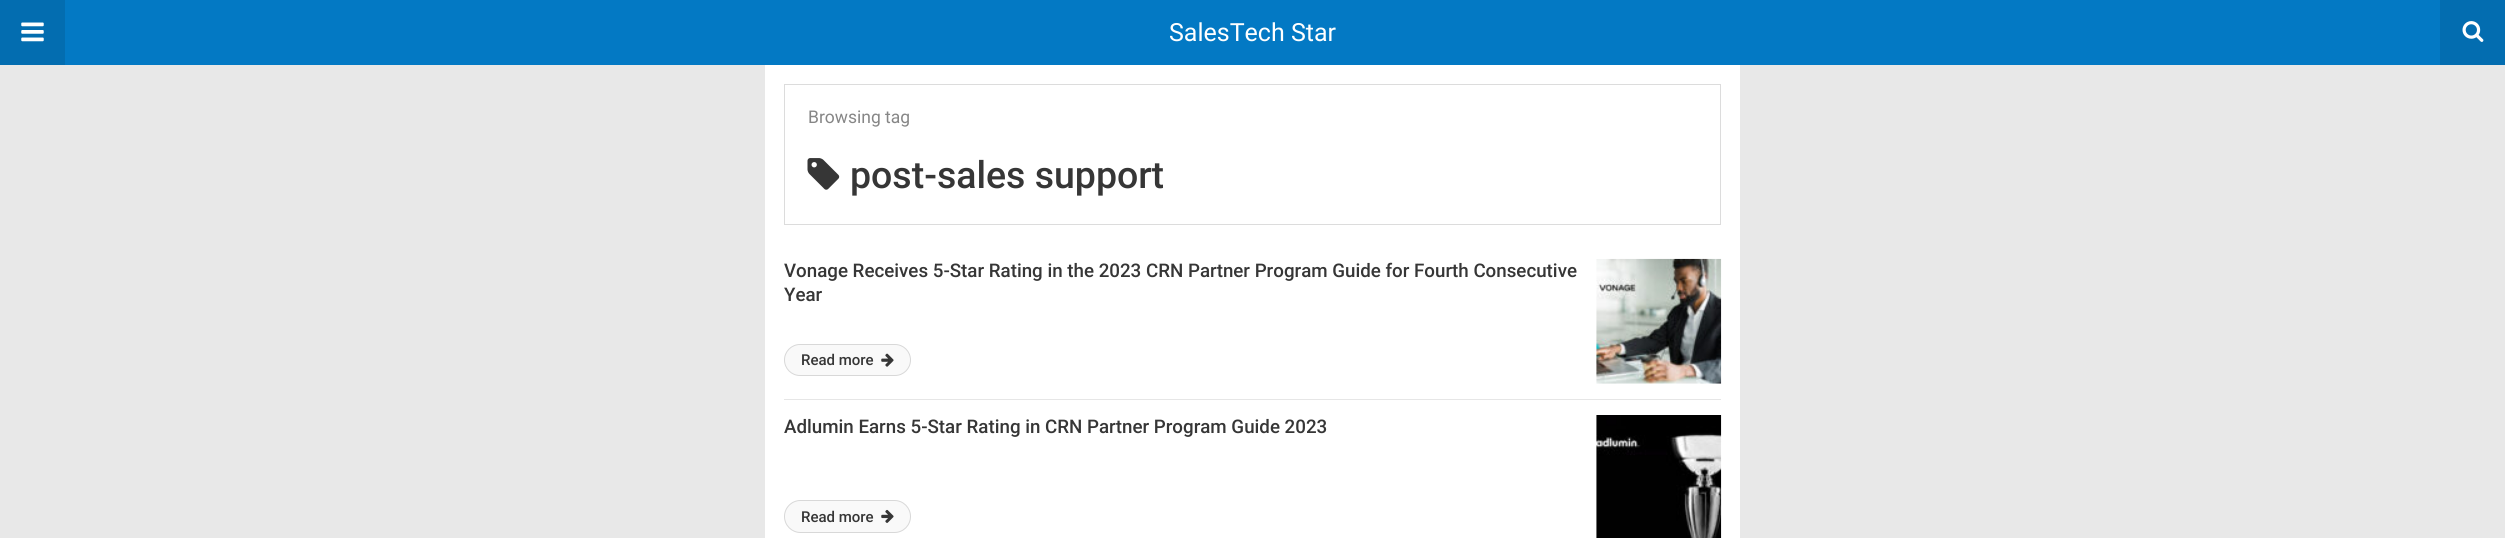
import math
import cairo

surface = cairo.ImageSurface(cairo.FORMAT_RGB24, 2505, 538)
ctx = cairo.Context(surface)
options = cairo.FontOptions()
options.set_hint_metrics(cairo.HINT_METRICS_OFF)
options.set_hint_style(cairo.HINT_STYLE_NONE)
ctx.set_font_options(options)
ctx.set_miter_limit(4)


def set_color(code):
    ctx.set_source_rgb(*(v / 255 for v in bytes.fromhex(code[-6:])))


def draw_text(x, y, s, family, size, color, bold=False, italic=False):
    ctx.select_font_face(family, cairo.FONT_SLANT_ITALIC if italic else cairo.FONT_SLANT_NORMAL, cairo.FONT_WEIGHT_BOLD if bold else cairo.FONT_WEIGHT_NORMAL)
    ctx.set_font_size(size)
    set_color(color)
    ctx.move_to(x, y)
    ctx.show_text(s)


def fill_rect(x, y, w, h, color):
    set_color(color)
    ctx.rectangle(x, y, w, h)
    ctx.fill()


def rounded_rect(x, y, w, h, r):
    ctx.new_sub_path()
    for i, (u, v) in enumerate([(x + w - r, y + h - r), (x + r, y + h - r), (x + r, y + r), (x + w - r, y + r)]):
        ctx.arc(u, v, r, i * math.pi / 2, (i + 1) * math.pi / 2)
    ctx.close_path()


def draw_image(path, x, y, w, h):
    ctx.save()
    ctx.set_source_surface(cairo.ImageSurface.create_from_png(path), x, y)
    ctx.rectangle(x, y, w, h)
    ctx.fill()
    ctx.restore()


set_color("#e8e8e8")
ctx.paint()
fill_rect(765, 65, 975, 473, "#ffffff")
fill_rect(65, 0, 2375, 65, "#0379c4")
fill_rect(0, 0, 65, 65, "#036db0")
draw_image("assets/img1.png", 21, 22, 23, 20)
draw_text(1169, 41, "SalesTech Star", "Roboto", 25, "#ffffff")
fill_rect(2440, 0, 65, 65, "#036db0")
draw_image("assets/img2.png", 2462, 21, 22, 21)
ctx.rectangle(784.5, 84.5, 936, 140)
set_color("#dcdcdc")
ctx.set_line_width(1)
ctx.stroke()
draw_text(808, 123, "Browsing tag", "Roboto", 17.5, "#868686")
draw_image("assets/img3.png", 807, 158, 33, 32)
draw_text(850, 188, "post-sales support", "Roboto Medium", 37.5, "#363636")
fill_rect(784, 399, 937, 1, "#e6e6e6")
draw_text(784, 277, "Vonage Receives 5-Star Rating in the 2023 CRN Partner Program Guide for Fourth Consecutive", "Roboto Medium", 18.75, "#363636")
draw_text(784, 301, "Year", "Roboto Medium", 18.75, "#363636")
draw_image("assets/img4.png", 1596, 258, 126, 126)
set_color("#f9f9f9")
rounded_rect(784.5, 344.5, 126, 31, 15.5)
ctx.fill_preserve()
set_color("#d8d8d8")
ctx.stroke()
draw_text(801, 365, "Read more", "Roboto Medium", 15, "#363636")
draw_image("assets/img5.png", 881, 353, 13, 14)
draw_text(784, 433, "Adlumin Earns 5-Star Rating in CRN Partner Program Guide 2023", "Roboto Medium", 18.75, "#363636")
draw_image("assets/img6.png", 1596, 415, 126, 123)
set_color("#f9f9f9")
rounded_rect(784.5, 500.5, 126, 32, 16)
ctx.fill_preserve()
set_color("#d8d8d8")
ctx.stroke()
draw_text(801, 522, "Read more", "Roboto Medium", 15, "#363636")
draw_image("assets/img7.png", 881, 509, 13, 14)
surface.write_to_png("output.png")
